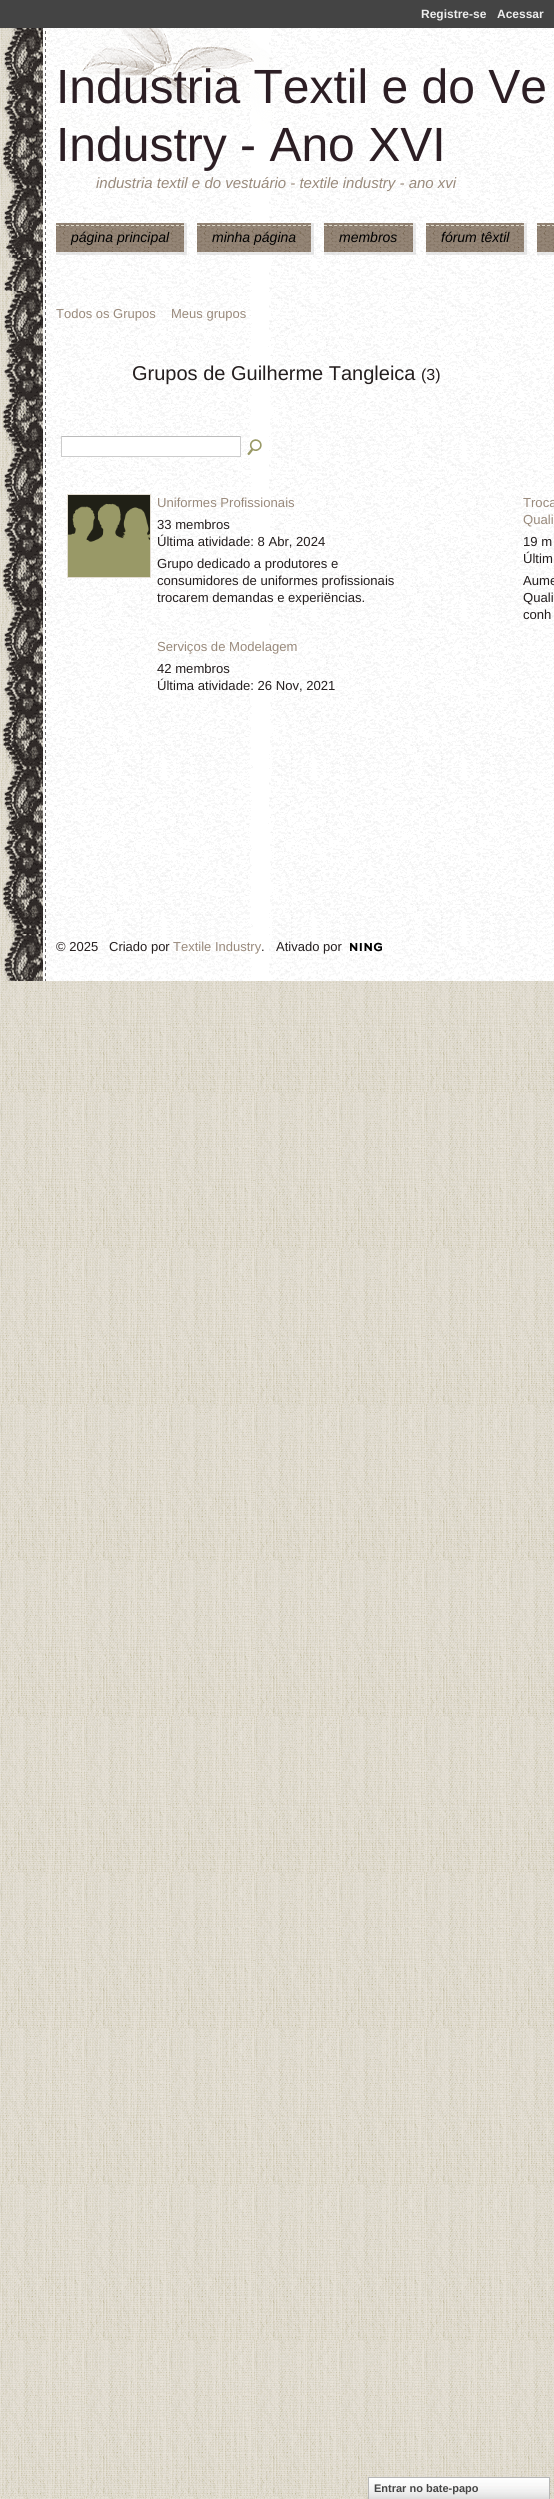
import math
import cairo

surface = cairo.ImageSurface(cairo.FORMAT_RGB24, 554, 2499)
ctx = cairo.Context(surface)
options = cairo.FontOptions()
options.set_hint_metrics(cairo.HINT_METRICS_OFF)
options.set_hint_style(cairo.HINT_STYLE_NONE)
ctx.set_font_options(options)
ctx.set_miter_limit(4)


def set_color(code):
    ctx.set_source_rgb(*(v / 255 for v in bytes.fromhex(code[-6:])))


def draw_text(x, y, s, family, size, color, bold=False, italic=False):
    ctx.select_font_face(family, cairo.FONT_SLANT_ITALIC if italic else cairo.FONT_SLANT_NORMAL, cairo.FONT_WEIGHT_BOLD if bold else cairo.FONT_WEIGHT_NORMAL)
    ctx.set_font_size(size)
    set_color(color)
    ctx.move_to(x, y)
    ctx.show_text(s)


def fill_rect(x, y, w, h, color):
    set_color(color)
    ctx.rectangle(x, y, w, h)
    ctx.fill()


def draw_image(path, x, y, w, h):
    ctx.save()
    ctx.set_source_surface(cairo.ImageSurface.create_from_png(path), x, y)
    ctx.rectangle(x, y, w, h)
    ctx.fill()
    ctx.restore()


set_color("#ffffff")
ctx.paint()
draw_image("assets/img1.png", 0, 28, 554, 2471)
fill_rect(0, 0, 554, 28, "#444444")
draw_text(421, 18, "Registre-se", "Liberation Sans", 12, "#eeeeee", bold=True)
draw_text(497, 18, "Acessar", "Liberation Sans", 12, "#eeeeee", bold=True)
draw_image("assets/img2.png", 2, 28, 552, 230)
draw_image("assets/img3.png", 47, 28, 226, 104)
draw_text(56, 103, "Industria Textil e do Ve", "Liberation Sans", 48, "#2c1e24")
draw_text(56, 161, "Industry - Ano XVI", "Liberation Sans", 48, "#2c1e24")
draw_text(96, 188, "industria textil e do vestuário - textile industry - ano xvi", "Liberation Sans", 15, "#998a7c", italic=True)
draw_image("assets/img4.png", 56, 223, 131, 32)
draw_image("assets/img5.png", 56, 223, 128, 29)
ctx.new_path()
ctx.move_to(56, 225.5)
ctx.line_to(184, 225.5)
set_color("#ddd8c9")
ctx.set_line_width(1)
ctx.set_dash([3, 2])
ctx.stroke()
draw_text(71, 242, "página principal", "Liberation Sans", 14, "#000000", italic=True)
draw_image("assets/img6.png", 197, 223, 117, 32)
draw_image("assets/img7.png", 197, 223, 114, 29)
ctx.new_path()
ctx.move_to(197, 225.5)
ctx.line_to(311, 225.5)
set_color("#ddd8c9")
ctx.set_dash([3, 2.05])
ctx.stroke()
draw_text(212, 242, "minha página", "Liberation Sans", 14, "#000000", italic=True)
draw_image("assets/img8.png", 324, 223, 92, 32)
draw_image("assets/img9.png", 324, 223, 89, 29)
ctx.new_path()
ctx.move_to(324, 225.5)
ctx.line_to(413, 225.5)
set_color("#ddd8c9")
ctx.set_dash([3, 2.06])
ctx.stroke()
draw_text(339, 242, "membros", "Liberation Sans", 14, "#000000", italic=True)
draw_image("assets/img10.png", 426, 223, 101, 32)
draw_image("assets/img11.png", 426, 223, 98, 29)
ctx.new_path()
ctx.move_to(426, 225.5)
ctx.line_to(524, 225.5)
set_color("#ddd8c9")
ctx.set_dash([3, 2])
ctx.stroke()
draw_text(441, 242, "fórum têxtil", "Liberation Sans", 14, "#000000", italic=True)
ctx.set_source_rgba(0.694, 0.694, 0.694, 0.3)
ctx.rectangle(537, 252, 17, 3)
ctx.fill()
draw_image("assets/img12.png", 537, 223, 17, 29)
ctx.new_path()
ctx.move_to(537, 225.5)
ctx.line_to(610, 225.5)
set_color("#ddd8c9")
ctx.stroke()
draw_image("assets/img13.png", 4, 258, 550, 33)
draw_image("assets/img14.png", 2, 291, 552, 643)
draw_text(56, 318, "Todos os Grupos", "Liberation Sans", 13, "#998a7c")
draw_text(171, 318, "Meus grupos", "Liberation Sans", 13, "#998a7c")
draw_text(132, 380, "Grupos de Guilherme Tangleica", "Liberation Sans", 20, "#241e1e")
draw_text(421, 380, "(3)", "Liberation Sans", 16, "#241e1e")
fill_rect(62, 437, 178, 19, "#ffffff")
fill_rect(61, 436, 180, 1, "#bbbbbb")
fill_rect(240, 436, 1, 21, "#cccccc")
fill_rect(61, 456, 180, 1, "#cccccc")
fill_rect(61, 436, 1, 21, "#cccccc")
draw_image("assets/img15.png", 247, 439, 15, 16)
ctx.rectangle(67.5, 494.5, 83, 83)
set_color("#e4ded3")
ctx.set_dash([])
ctx.stroke()
draw_image("assets/img16.png", 68, 495, 82, 82)
draw_text(157, 507, "Uniformes Profissionais", "Liberation Sans", 13.1, "#998a7c")
draw_text(157, 529, "33 membros", "Liberation Sans", 13.1, "#241e1e")
draw_text(157, 546, "Última atividade: 8 Abr, 2024", "Liberation Sans", 13.1, "#241e1e")
draw_text(157, 568, "Grupo dedicado a produtores e", "Liberation Sans", 13.1, "#241e1e")
draw_text(157, 585, "consumidores de uniformes profissionais", "Liberation Sans", 13.1, "#241e1e")
draw_text(157, 602, "trocarem demandas e experiëncias.", "Liberation Sans", 13.1, "#241e1e")
draw_text(523, 507, "Troca", "Liberation Sans", 13.1, "#998a7c")
draw_text(523, 524, "Quali", "Liberation Sans", 13.1, "#998a7c")
draw_text(523, 546, "19 m", "Liberation Sans", 13.1, "#241e1e")
draw_text(523, 563, "Últim", "Liberation Sans", 13.1, "#241e1e")
draw_text(523, 585, "Aume", "Liberation Sans", 13.1, "#241e1e")
draw_text(523, 602, "Quali", "Liberation Sans", 13.1, "#241e1e")
draw_text(523, 619, "conh", "Liberation Sans", 13.1, "#241e1e")
draw_text(157, 651, "Serviços de Modelagem", "Liberation Sans", 13.1, "#998a7c")
draw_text(157, 673, "42 membros", "Liberation Sans", 13.1, "#241e1e")
draw_text(157, 690, "Última atividade: 26 Nov, 2021", "Liberation Sans", 13.1, "#241e1e")
draw_image("assets/img17.png", 4, 934, 550, 47)
draw_text(56, 951, "© 2025", "Liberation Sans", 13, "#241e1e")
draw_text(109, 951, "Criado por", "Liberation Sans", 13, "#241e1e")
draw_text(173, 951, "Textile Industry", "Liberation Sans", 13, "#998a7c")
draw_text(261, 951, ".", "Liberation Sans", 13, "#241e1e")
draw_text(276, 951, "Ativado por", "Liberation Sans", 13, "#241e1e")
draw_image("assets/img18.png", 350, 942, 32, 10)
draw_image("assets/img19.png", 369, 2478, 180, 21)
ctx.rectangle(368.5, 2477.5, 181, 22)
set_color("#b7b7b7")
ctx.stroke()
draw_text(374, 2492, "Entrar no bate-papo", "Liberation Sans", 11, "#454545", bold=True)
surface.write_to_png("output.png")
